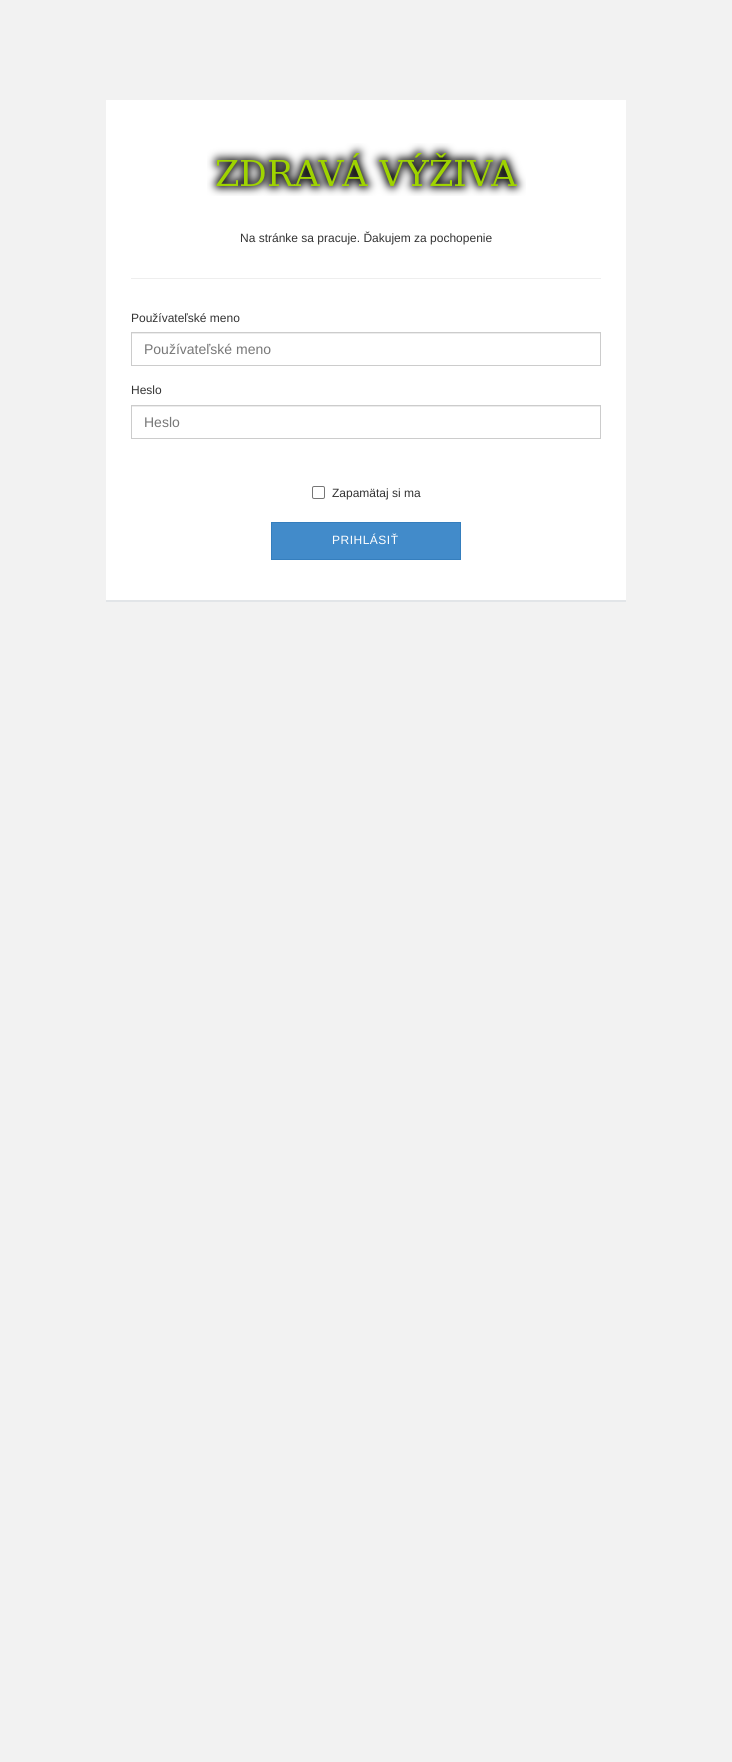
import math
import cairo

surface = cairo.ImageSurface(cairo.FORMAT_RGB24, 732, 1762)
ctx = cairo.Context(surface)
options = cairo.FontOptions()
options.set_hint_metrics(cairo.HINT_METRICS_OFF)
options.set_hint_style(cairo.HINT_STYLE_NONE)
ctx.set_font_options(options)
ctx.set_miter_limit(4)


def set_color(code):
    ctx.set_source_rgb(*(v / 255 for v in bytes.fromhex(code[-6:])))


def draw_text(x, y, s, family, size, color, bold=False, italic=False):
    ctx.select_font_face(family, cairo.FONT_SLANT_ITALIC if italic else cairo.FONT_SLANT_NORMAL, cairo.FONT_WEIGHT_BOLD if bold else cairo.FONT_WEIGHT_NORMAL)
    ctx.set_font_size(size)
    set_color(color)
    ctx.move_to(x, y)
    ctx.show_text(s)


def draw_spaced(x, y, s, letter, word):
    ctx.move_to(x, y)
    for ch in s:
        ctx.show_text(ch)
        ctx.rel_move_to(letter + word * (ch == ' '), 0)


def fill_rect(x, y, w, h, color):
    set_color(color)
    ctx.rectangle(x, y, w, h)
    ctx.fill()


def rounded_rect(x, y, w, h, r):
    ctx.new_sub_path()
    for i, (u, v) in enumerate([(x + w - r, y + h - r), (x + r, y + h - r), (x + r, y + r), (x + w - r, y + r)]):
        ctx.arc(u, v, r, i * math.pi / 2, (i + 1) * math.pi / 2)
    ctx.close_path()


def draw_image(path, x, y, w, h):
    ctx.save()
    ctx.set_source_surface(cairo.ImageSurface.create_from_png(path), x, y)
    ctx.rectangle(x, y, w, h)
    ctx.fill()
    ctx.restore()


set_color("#f2f2f2")
ctx.paint()
fill_rect(106, 100, 520, 500, "#ffffff")
fill_rect(106, 600, 520, 2, "#e2e5e8")
draw_image("assets/img1.png", 207, 143, 319, 53)
draw_text(240, 242, "Na stránke sa pracuje. Ďakujem za pochopenie", "Liberation Sans", 12, "#333333")
fill_rect(131, 278, 470, 1, "#eeeeee")
draw_text(131, 322, "Používateľské meno", "Liberation Sans", 12, "#333333")
fill_rect(132, 333, 468, 1, "#ececec")
ctx.rectangle(131.5, 332.5, 469, 33)
set_color("#cccccc")
ctx.set_line_width(1)
ctx.stroke()
draw_text(144, 354, "Používateľské meno", "Liberation Sans", 14, "#777777")
draw_text(131, 394, "Heslo", "Liberation Sans", 12, "#333333")
fill_rect(132, 406, 468, 1, "#ececec")
ctx.rectangle(131.5, 405.5, 469, 33)
set_color("#cccccc")
ctx.stroke()
draw_text(144, 427, "Heslo", "Liberation Sans", 14, "#777777")
rounded_rect(312.5, 486.5, 12, 12, 1.5)
set_color("#767676")
ctx.stroke()
draw_text(332, 497, "Zapamätaj si ma", "Liberation Sans", 12, "#333333")
set_color("#428bca")
ctx.rectangle(271.5, 522.5, 189, 37)
ctx.fill_preserve()
set_color("#357ebd")
ctx.stroke()
set_color("#ffffff")
draw_spaced(332, 544, "PRIHLÁSIŤ", 0.5, 0)
surface.write_to_png("output.png")
